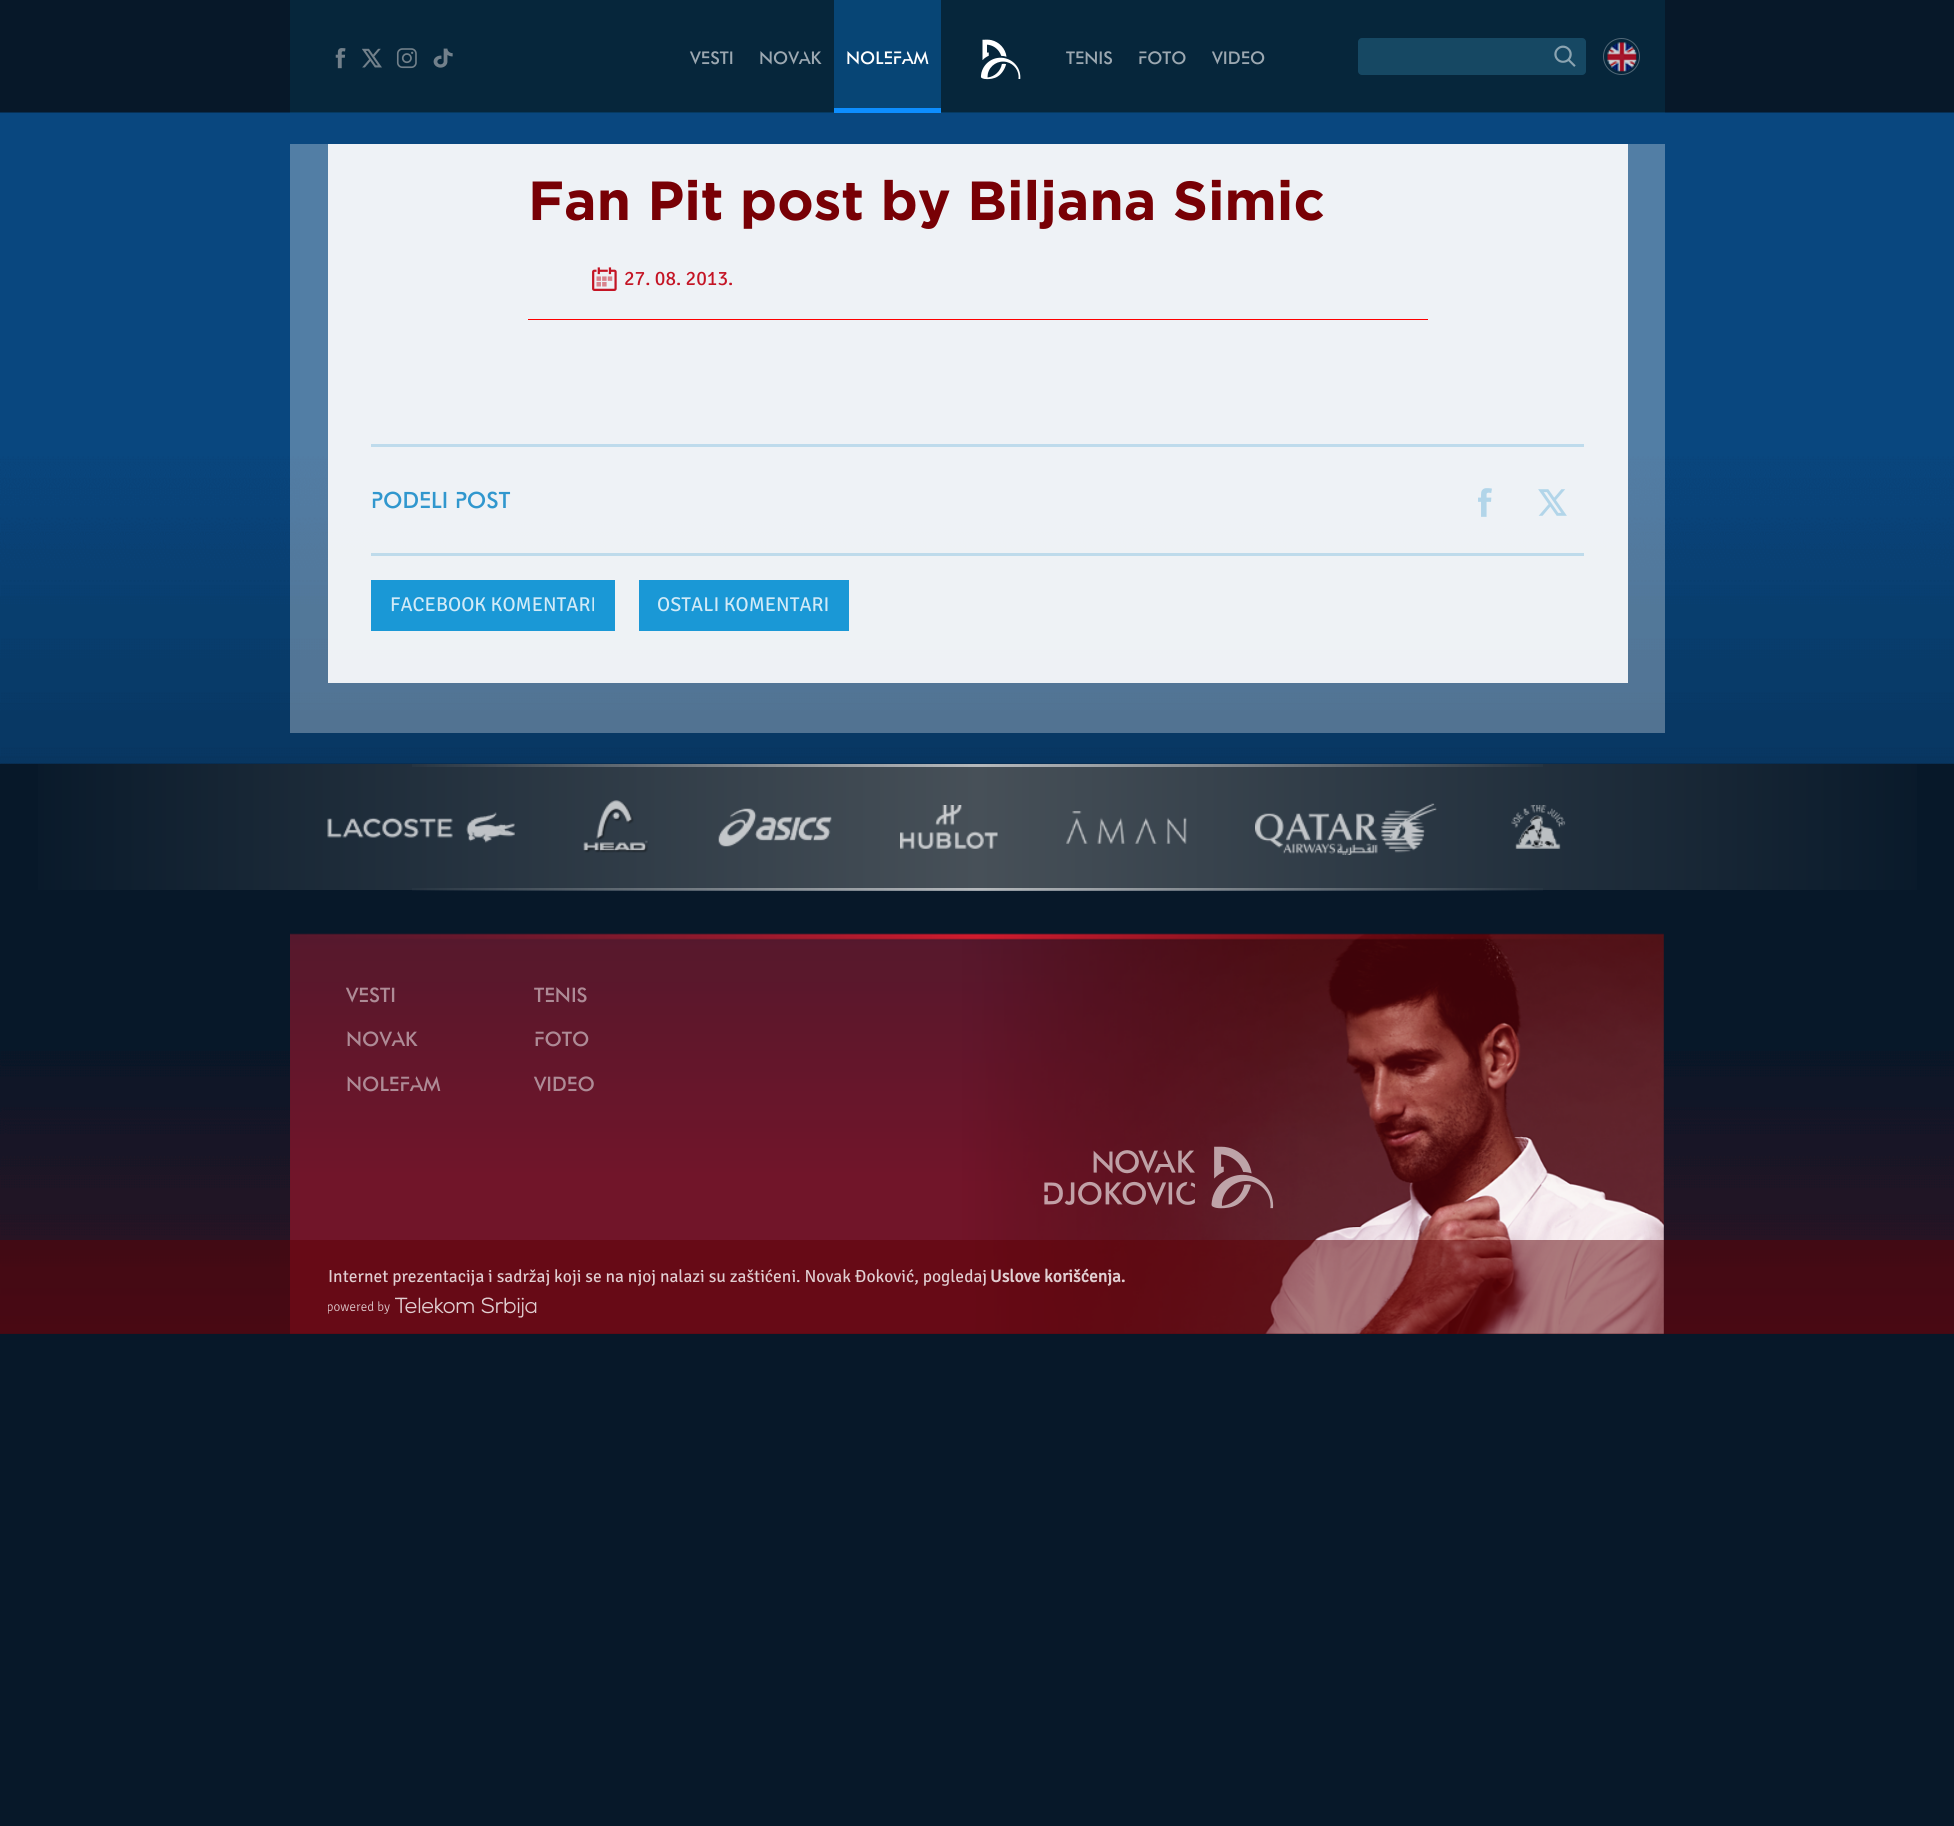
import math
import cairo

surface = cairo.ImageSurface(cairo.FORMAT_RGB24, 1954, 1826)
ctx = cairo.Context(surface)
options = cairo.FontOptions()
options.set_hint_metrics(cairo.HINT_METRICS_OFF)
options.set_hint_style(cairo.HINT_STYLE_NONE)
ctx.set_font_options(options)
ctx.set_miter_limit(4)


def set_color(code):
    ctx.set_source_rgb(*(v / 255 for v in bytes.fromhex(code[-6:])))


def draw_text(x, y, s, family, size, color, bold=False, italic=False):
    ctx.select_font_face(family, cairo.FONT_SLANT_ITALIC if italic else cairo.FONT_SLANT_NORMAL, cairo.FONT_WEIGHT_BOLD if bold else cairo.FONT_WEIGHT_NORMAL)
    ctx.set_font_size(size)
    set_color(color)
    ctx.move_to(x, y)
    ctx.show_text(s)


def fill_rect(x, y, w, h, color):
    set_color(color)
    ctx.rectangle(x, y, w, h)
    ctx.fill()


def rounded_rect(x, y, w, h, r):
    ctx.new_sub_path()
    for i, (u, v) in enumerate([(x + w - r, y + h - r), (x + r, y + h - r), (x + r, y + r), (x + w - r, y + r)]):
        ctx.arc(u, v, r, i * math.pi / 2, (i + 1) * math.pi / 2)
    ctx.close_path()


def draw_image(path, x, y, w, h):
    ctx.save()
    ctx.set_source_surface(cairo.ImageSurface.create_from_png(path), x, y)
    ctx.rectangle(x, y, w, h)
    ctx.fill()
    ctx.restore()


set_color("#071829")
ctx.paint()
draw_image("assets/img8.png", 0, 112, 1954, 652)
ctx.set_source_rgba(0, 0.647, 0.894, 0.1)
ctx.rectangle(290, 0, 1375, 113)
ctx.fill()
draw_image("assets/img1.png", 335, 48, 11, 21)
draw_image("assets/img2.png", 362, 48, 20, 20)
draw_image("assets/img3.png", 396, 48, 21, 21)
draw_image("assets/img4.png", 433, 48, 20, 20)
draw_text(690, 64, "VESTI", "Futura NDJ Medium", 17.5, "#9ca8b1")
draw_text(759, 64, "NOVAK", "Futura NDJ Medium", 17.5, "#9ca8b1")
ctx.set_source_rgba(0.051, 0.557, 1, 0.3)
ctx.rectangle(834, 0, 107, 108)
ctx.fill()
fill_rect(834, 108, 107, 5, "#0d8eff")
draw_text(846, 64, "NOLEFAM", "Futura NDJ Medium", 17.5, "#ffffff")
draw_image("assets/img5.png", 980, 39, 41, 41)
draw_text(1066, 64, "TENIS", "Futura NDJ Medium", 17.5, "#9ca8b1")
draw_text(1138, 64, "FOTO", "Futura NDJ Medium", 17.5, "#9ca8b1")
draw_text(1212, 64, "VIDEO", "Futura NDJ Medium", 17.5, "#9ca8b1")
set_color("#164863")
rounded_rect(1358, 38, 228, 37, 4)
ctx.fill()
draw_image("assets/img6.png", 1554, 45, 22, 22)
ctx.arc(1621.5, 56.5, 18, 0, 2 * math.pi)
set_color("#516776")
ctx.set_line_width(1)
ctx.stroke()
draw_image("assets/img7.png", 1607, 42, 30, 30)
ctx.set_source_rgba(1, 1, 1, 0.3)
ctx.rectangle(290, 144, 1375, 589)
ctx.fill()
ctx.set_source_rgba(1, 1, 1, 0.9)
ctx.rectangle(328, 144, 1300, 539)
ctx.fill()
fill_rect(528, 319, 900, 1, "#ff0000")
draw_text(528, 220, "Fan Pit post by Biljana Simic", "Gotham", 55, "#780005", bold=True)
draw_image("assets/img9.png", 592, 267, 25, 24)
draw_text(624, 285, "27. 08. 2013.", "Signika Negative", 20, "#c41424")
fill_rect(371, 444, 1213, 3, "#bedbec")
draw_text(371, 508, "PODELI POST", "Futura NDJ Medium", 22.5, "#3097ce")
draw_image("assets/img10.png", 1478, 488, 14, 29)
draw_image("assets/img11.png", 1538, 489, 29, 27)
fill_rect(371, 553, 1213, 3, "#bedbeb")
fill_rect(371, 580, 244, 51, "#1a98d6")
draw_text(390, 611, "FACEBOOK KOMENTARI", "Signika Negative", 20, "#d1eaf7")
fill_rect(639, 580, 210, 51, "#1a98d6")
draw_text(657, 611, "OSTALI KOMENTARI", "Signika Negative", 20, "#d1eaf7")
gradient = cairo.LinearGradient(0, 827, 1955, 827)
gradient.add_color_stop_rgba(0, 0.027, 0.094, 0.161, 1)
gradient.add_color_stop_rgba(0.5, 0.278, 0.314, 0.345, 1)
gradient.add_color_stop_rgba(1, 0.027, 0.094, 0.161, 1)
ctx.set_source(gradient)
ctx.rectangle(38, 764, 1879, 126)
ctx.fill()
gradient = cairo.LinearGradient(0, 765, 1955, 765)
gradient.add_color_stop_rgba(0.2, 1, 1, 1, 0)
gradient.add_color_stop_rgba(0.5, 1, 1, 1, 0.6)
gradient.add_color_stop_rgba(0.8, 1, 1, 1, 0)
ctx.set_source(gradient)
ctx.rectangle(412, 764, 1131, 3)
ctx.fill()
draw_image("assets/img12.png", 327, 812, 188, 31)
draw_image("assets/img13.png", 583, 800, 66, 53)
draw_image("assets/img14.png", 718, 808, 114, 39)
draw_image("assets/img15.png", 900, 805, 98, 44)
draw_image("assets/img16.png", 1066, 811, 121, 33)
draw_image("assets/img17.png", 1255, 803, 182, 52)
draw_image("assets/img18.png", 1511, 805, 55, 44)
gradient = cairo.LinearGradient(0, 889, 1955, 889)
gradient.add_color_stop_rgba(0.2, 1, 1, 1, 0)
gradient.add_color_stop_rgba(0.5, 1, 1, 1, 0.6)
gradient.add_color_stop_rgba(0.8, 1, 1, 1, 0)
ctx.set_source(gradient)
ctx.rectangle(412, 888, 1131, 3)
ctx.fill()
draw_image("assets/img19.png", 0, 1051, 1954, 283)
draw_image("assets/img20.png", 290, 933, 1374, 401)
draw_text(346, 1002, "VESTI", "Futura NDJ Medium", 20, "#ae8b96")
draw_text(346, 1046, "NOVAK", "Futura NDJ Medium", 20, "#ae8b96")
draw_text(346, 1091, "NOLEFAM", "Futura NDJ Medium", 20, "#ae8b96")
draw_text(534, 1002, "TENIS", "Futura NDJ Medium", 20, "#ae8b96")
draw_text(534, 1046, "FOTO", "Futura NDJ Medium", 20, "#ae8b96")
draw_text(534, 1091, "VIDEO", "Futura NDJ Medium", 20, "#ae8b96")
draw_image("assets/img21.png", 1044, 1146, 230, 63)
ctx.set_source_rgba(0.369, 0, 0.02, 0.5)
ctx.rectangle(0, 1240, 1954, 94)
ctx.fill()
draw_text(328, 1282, "Internet prezentacija i sadržaj koji se na njoj nalazi su zaštićeni. Novak Đoković, pogledaj", "Signika Negative", 17.5, "#e1ced1")
draw_text(990, 1282, "Uslove korišćenja.", "Signika Negative", 17.5, "#e1ced1", bold=True)
draw_image("assets/img22.png", 328, 1301, 62, 13)
draw_image("assets/img23.png", 395, 1297, 142, 21)
surface.write_to_png("output.png")
